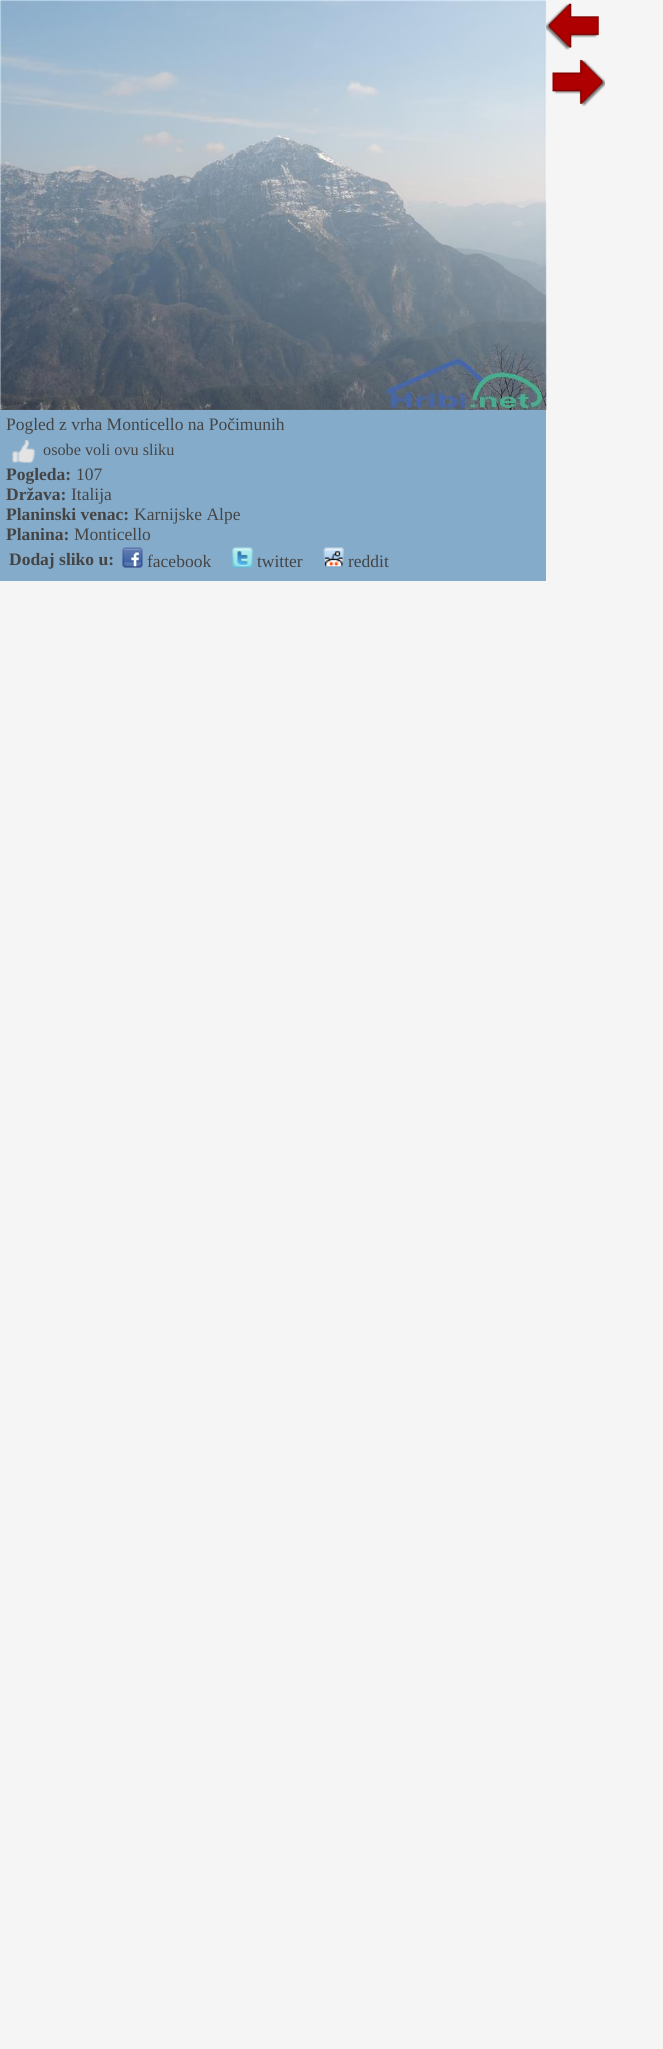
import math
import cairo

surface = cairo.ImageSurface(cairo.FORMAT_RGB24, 663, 2049)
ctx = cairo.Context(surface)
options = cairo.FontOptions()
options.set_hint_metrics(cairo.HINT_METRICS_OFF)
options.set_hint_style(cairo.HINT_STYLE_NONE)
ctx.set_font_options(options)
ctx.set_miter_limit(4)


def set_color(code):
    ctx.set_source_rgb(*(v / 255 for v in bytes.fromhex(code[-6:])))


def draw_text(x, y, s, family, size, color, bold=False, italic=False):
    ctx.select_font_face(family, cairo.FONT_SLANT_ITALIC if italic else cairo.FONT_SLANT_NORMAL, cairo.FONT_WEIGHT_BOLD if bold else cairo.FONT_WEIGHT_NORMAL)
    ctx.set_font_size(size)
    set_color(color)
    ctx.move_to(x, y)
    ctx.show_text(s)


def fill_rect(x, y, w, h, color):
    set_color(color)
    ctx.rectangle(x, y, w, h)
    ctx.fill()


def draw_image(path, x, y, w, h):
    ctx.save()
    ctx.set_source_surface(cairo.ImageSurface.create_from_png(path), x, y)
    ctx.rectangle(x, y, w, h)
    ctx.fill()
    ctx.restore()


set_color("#f5f5f5")
ctx.paint()
draw_image("assets/img3.png", 0, 0, 547, 410)
draw_image("assets/img1.png", 546, 3, 53, 47)
draw_image("assets/img2.png", 552, 59, 53, 48)
fill_rect(0, 410, 546, 171, "#85abca")
draw_text(6, 430, "Pogled z vrha Monticello na Počimunih", "Liberation Serif", 17.5, "#444444")
draw_image("assets/img4.png", 12, 440, 23, 23)
draw_text(43, 455, "osobe voli ovu sliku", "Liberation Serif", 16.25, "#444444")
draw_text(6, 480, "Pogleda:", "Liberation Serif", 17.5, "#444444", bold=True)
draw_text(76, 480, "107", "Liberation Serif", 17.5, "#444444")
draw_text(6, 500, "Država:", "Liberation Serif", 17.5, "#444444", bold=True)
draw_text(71, 500, "Italija", "Liberation Serif", 17.5, "#444444")
draw_text(6, 520, "Planinski venac:", "Liberation Serif", 17.5, "#444444", bold=True)
draw_text(134, 520, "Karnijske Alpe", "Liberation Serif", 17.5, "#444444")
draw_text(6, 540, "Planina:", "Liberation Serif", 17.5, "#444444", bold=True)
draw_text(74, 540, "Monticello", "Liberation Serif", 17.5, "#444444")
draw_text(9, 565, "Dodaj sliko u:", "Liberation Serif", 17.5, "#444444", bold=True)
draw_image("assets/img5.png", 122, 547, 21, 21)
draw_text(147, 567, "facebook", "Liberation Serif", 17.5, "#444444")
draw_image("assets/img6.png", 232, 547, 21, 21)
draw_text(257, 567, "twitter", "Liberation Serif", 17.5, "#444444")
draw_image("assets/img7.png", 323, 547, 21, 21)
draw_text(348, 567, "reddit", "Liberation Serif", 17.5, "#444444")
surface.write_to_png("output.png")
